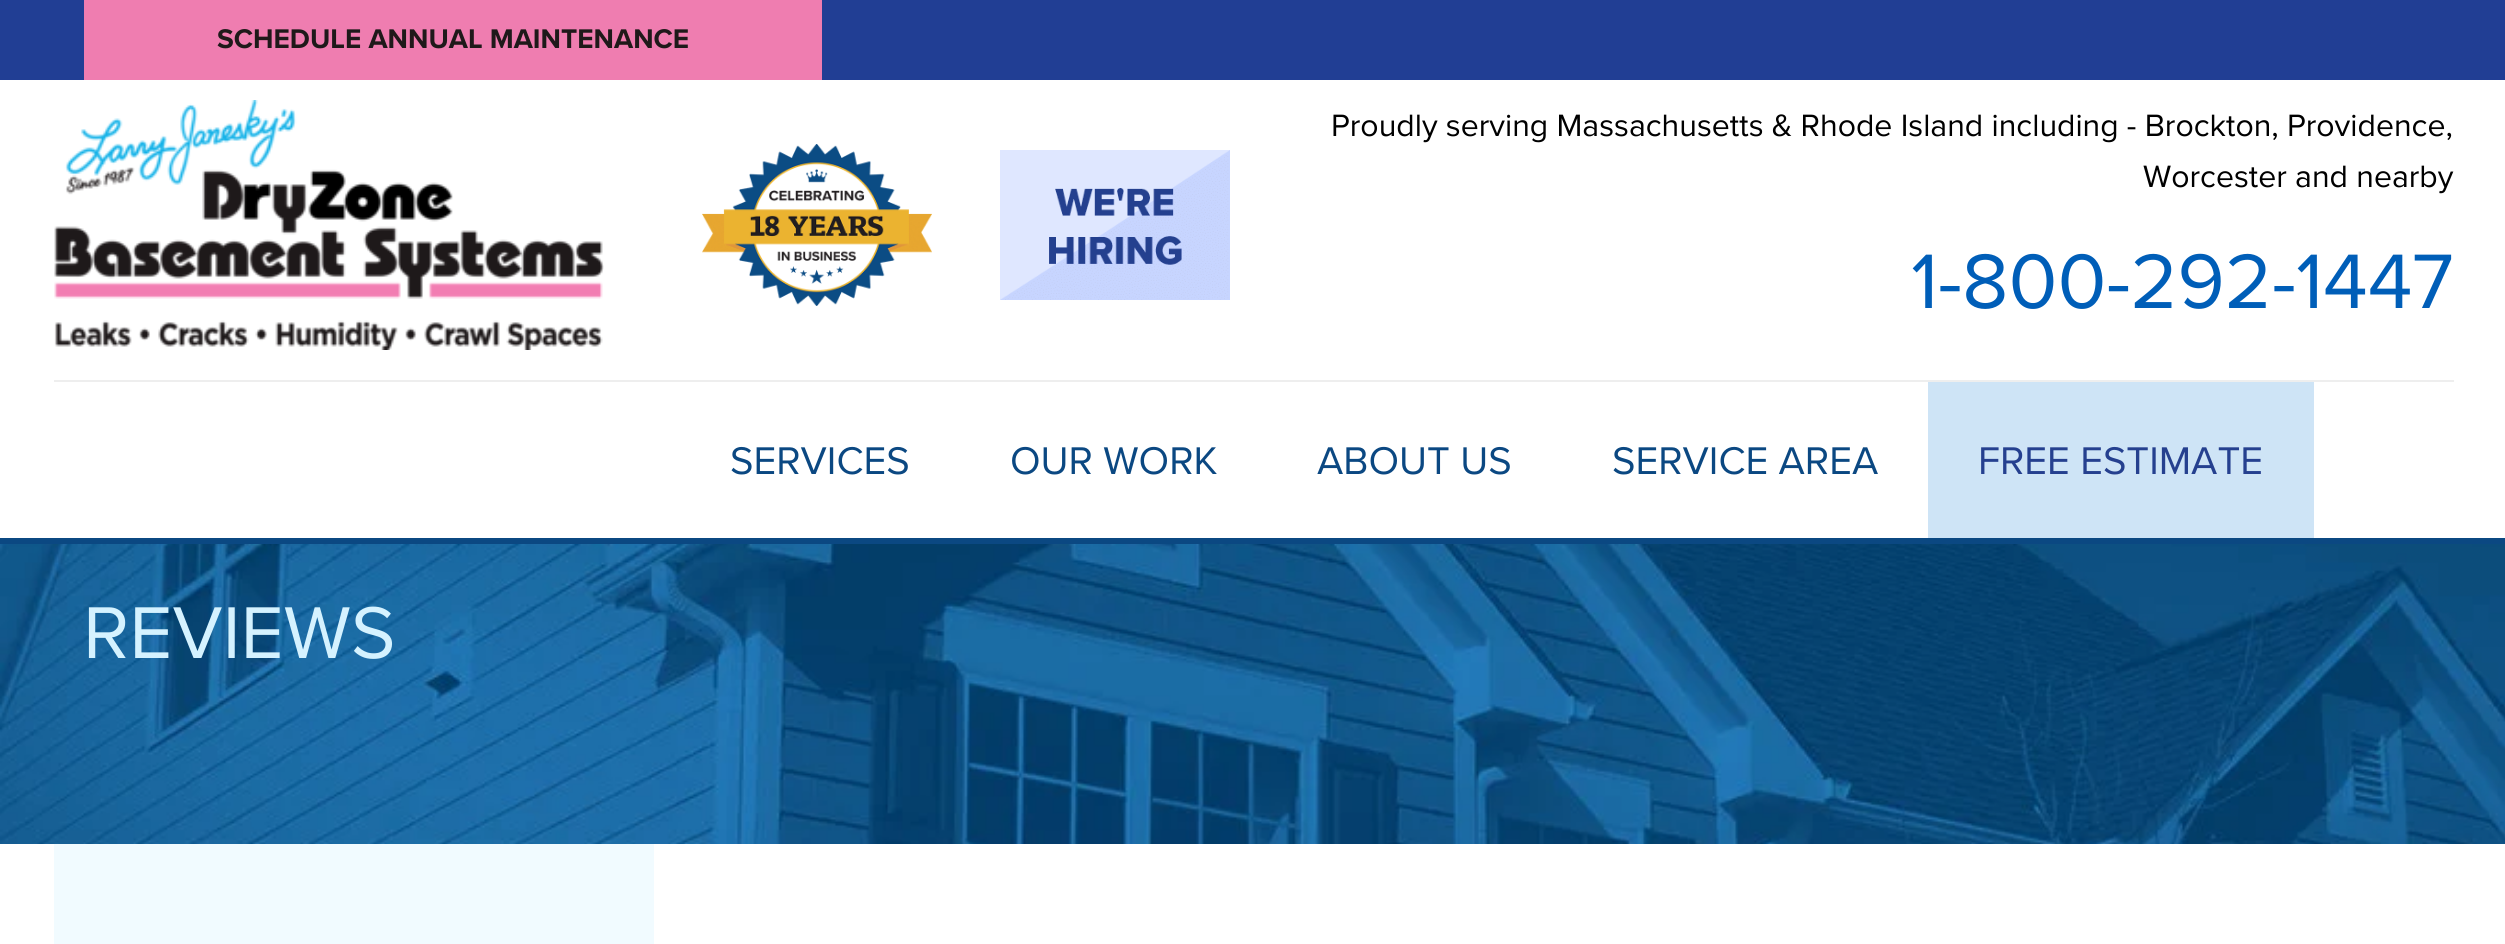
import math
import cairo

surface = cairo.ImageSurface(cairo.FORMAT_RGB24, 2505, 944)
ctx = cairo.Context(surface)
options = cairo.FontOptions()
options.set_hint_metrics(cairo.HINT_METRICS_OFF)
options.set_hint_style(cairo.HINT_STYLE_NONE)
ctx.set_font_options(options)
ctx.set_miter_limit(4)


def set_color(code):
    ctx.set_source_rgb(*(v / 255 for v in bytes.fromhex(code[-6:])))


def draw_text(x, y, s, family, size, color, bold=False, italic=False):
    ctx.select_font_face(family, cairo.FONT_SLANT_ITALIC if italic else cairo.FONT_SLANT_NORMAL, cairo.FONT_WEIGHT_BOLD if bold else cairo.FONT_WEIGHT_NORMAL)
    ctx.set_font_size(size)
    set_color(color)
    ctx.move_to(x, y)
    ctx.show_text(s)


def fill_rect(x, y, w, h, color):
    set_color(color)
    ctx.rectangle(x, y, w, h)
    ctx.fill()


def draw_image(path, x, y, w, h):
    ctx.save()
    ctx.set_source_surface(cairo.ImageSurface.create_from_png(path), x, y)
    ctx.rectangle(x, y, w, h)
    ctx.fill()
    ctx.restore()


set_color("#ffffff")
ctx.paint()
fill_rect(0, 0, 2505, 80, "#213e94")
fill_rect(84, 0, 738, 80, "#ef7db0")
draw_text(217, 48, "SCHEDULE ANNUAL MAINTENANCE", "Proxima Nova", 28, "#1f191a", bold=True)
fill_rect(54, 380, 2400, 2, "#eeeeee")
draw_image("assets/img1.png", 54, 100, 550, 250)
draw_image("assets/img2.png", 702, 144, 230, 162)
draw_image("assets/img3.png", 1000, 150, 230, 150)
draw_text(1331, 136, "Proudly serving Massachusetts & Rhode Island including - Brockton, Providence,", "Proxima Nova", 32, "#000000")
draw_text(2143, 187, "Worcester and nearby", "Proxima Nova", 32, "#000000")
draw_text(1911, 308, "1-800-292-1447", "Proxima Nova", 80, "#005eb8")
fill_rect(0, 538, 2505, 6, "#0b4882")
draw_text(730, 474, "SERVICES", "Proxima Nova", 40, "#0b4882")
draw_text(1010, 474, "OUR WORK", "Proxima Nova", 40, "#0b4882")
draw_text(1317, 474, "ABOUT US", "Proxima Nova", 40, "#0b4882")
draw_text(1612, 474, "SERVICE AREA", "Proxima Nova", 40, "#0b4882")
fill_rect(1928, 382, 386, 156, "#cee4f6")
draw_text(1978, 474, "FREE ESTIMATE", "Proxima Nova", 40, "#25408f")
draw_image("assets/img4.png", 0, 544, 2505, 300)
draw_text(83, 658, "REVIEWS", "Proxima Nova", 76, "#d5f2ff")
fill_rect(54, 844, 600, 100, "#f1fbff")
surface.write_to_png("output.png")
